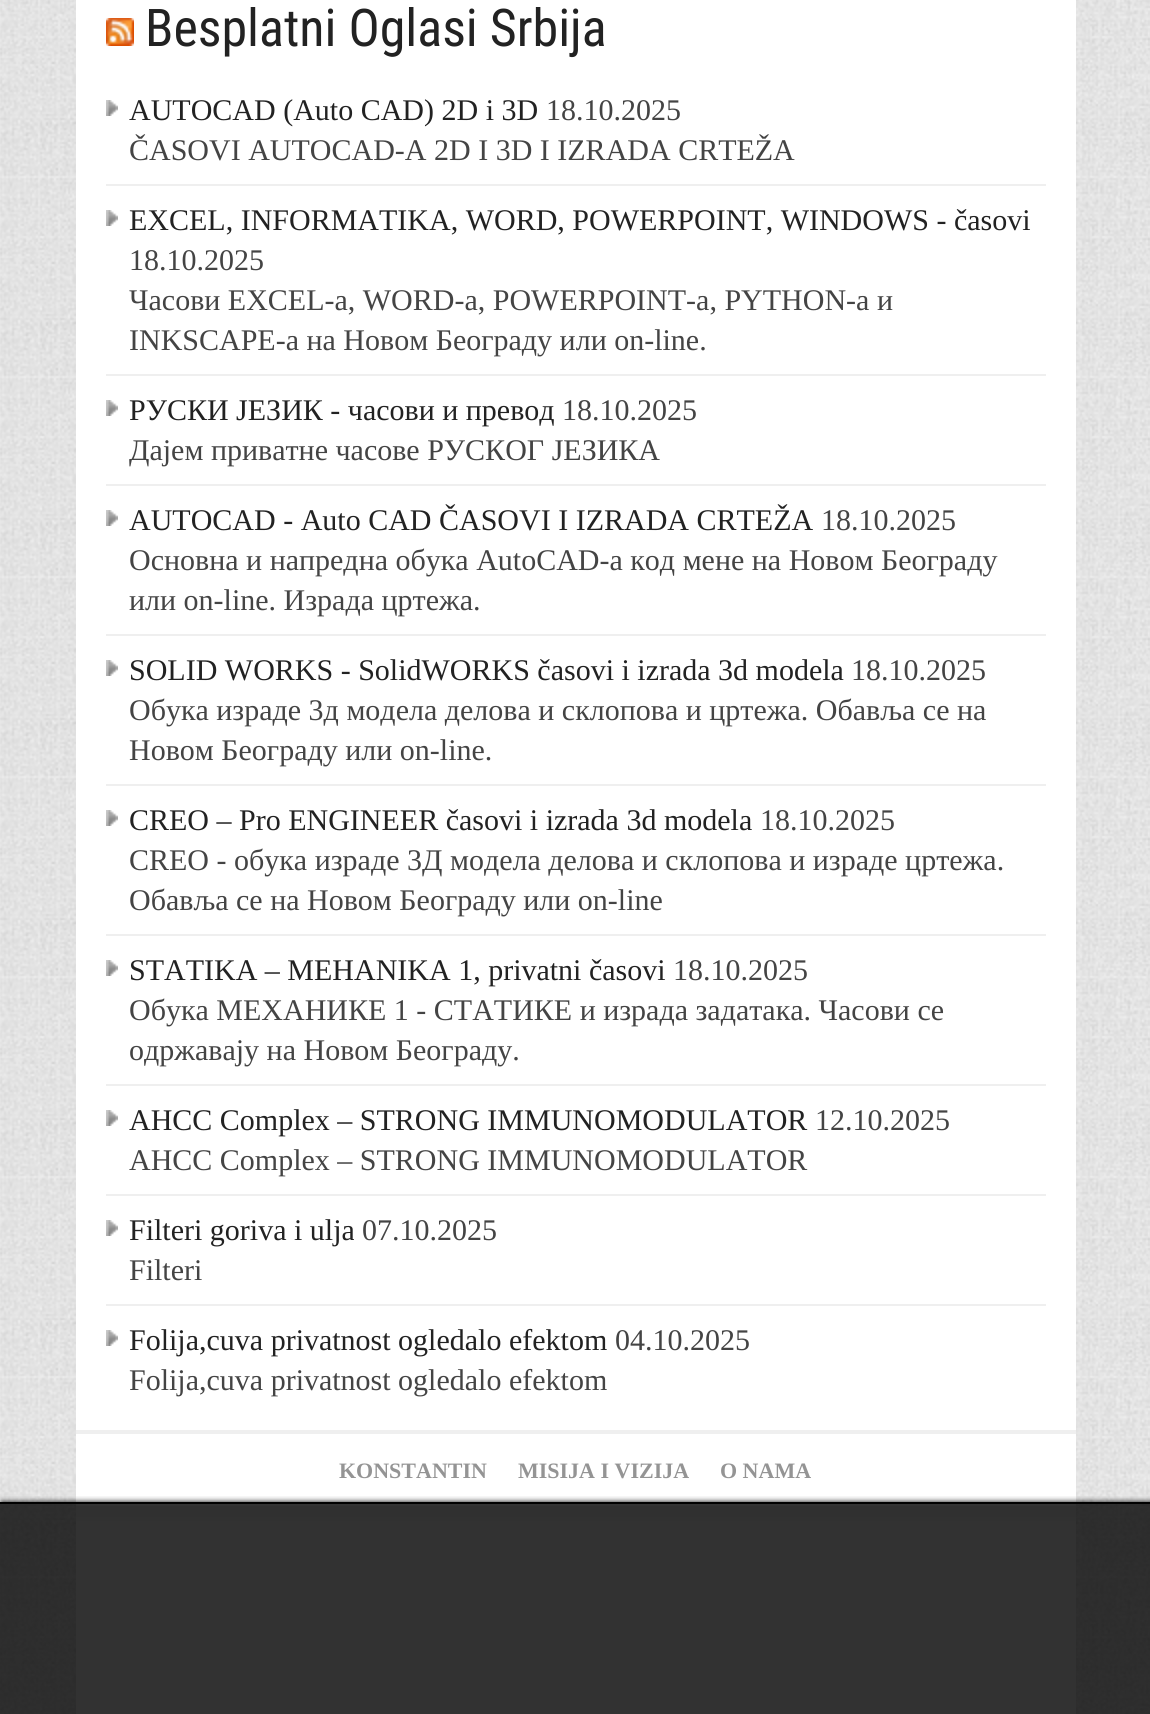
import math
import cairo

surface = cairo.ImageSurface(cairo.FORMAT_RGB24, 1150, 1714)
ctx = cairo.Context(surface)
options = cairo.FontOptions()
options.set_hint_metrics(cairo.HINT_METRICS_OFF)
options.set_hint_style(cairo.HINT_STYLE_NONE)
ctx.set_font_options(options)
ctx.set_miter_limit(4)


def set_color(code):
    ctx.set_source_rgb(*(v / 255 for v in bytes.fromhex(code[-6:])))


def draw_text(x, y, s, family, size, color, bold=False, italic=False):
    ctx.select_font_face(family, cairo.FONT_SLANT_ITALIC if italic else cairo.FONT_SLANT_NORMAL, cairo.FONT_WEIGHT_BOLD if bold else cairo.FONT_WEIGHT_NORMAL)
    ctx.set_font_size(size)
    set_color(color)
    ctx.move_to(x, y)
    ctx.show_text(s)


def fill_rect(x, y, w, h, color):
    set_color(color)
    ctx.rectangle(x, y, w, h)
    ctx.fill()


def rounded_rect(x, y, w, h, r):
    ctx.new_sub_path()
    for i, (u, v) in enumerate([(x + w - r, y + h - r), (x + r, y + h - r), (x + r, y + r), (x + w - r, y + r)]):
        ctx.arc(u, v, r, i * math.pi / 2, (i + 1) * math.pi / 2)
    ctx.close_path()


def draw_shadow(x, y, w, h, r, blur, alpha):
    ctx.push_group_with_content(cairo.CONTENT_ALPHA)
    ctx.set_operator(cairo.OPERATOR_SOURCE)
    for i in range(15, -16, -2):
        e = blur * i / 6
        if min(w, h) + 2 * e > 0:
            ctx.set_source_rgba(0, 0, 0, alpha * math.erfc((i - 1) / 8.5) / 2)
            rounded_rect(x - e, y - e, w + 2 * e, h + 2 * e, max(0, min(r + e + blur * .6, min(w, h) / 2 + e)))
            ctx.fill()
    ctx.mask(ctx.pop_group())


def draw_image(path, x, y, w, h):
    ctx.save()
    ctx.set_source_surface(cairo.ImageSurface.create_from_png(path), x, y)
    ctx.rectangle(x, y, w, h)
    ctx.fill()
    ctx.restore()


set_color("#ffffff")
ctx.paint()
draw_image("assets/img1.png", 0, 0, 1150, 1714)
fill_rect(76, 0, 1000, 1506, "#ffffff")
draw_image("assets/img2.png", 106, 18, 28, 28)
draw_text(145, 46, "Besplatni Oglasi Srbija", "Roboto Condensed", 52, "#222222")
draw_image("assets/img3.png", 106, 100, 12, 16)
fill_rect(106, 184, 940, 2, "#efefef")
draw_text(129, 120, "AUTOCAD (Auto CAD) 2D i 3D", "Liberation Serif", 30, "#222222")
draw_text(546, 120, "18.10.2025", "Liberation Serif", 30, "#444444")
draw_text(129, 160, "ČASOVI AUTOCAD-A 2D I 3D I IZRADA CRTEŽA", "Liberation Serif", 30, "#444444")
draw_image("assets/img3.png", 106, 210, 12, 16)
fill_rect(106, 374, 940, 2, "#efefef")
draw_text(129, 230, "EXCEL, INFORMATIKA, WORD, POWERPOINT, WINDOWS - časovi", "Liberation Serif", 30, "#222222")
draw_text(129, 270, "18.10.2025", "Liberation Serif", 30, "#444444")
draw_text(129, 310, "Часови EXCEL-a, WORD-a, POWERPOINT-a, PYTHON-a и", "Liberation Serif", 30, "#444444")
draw_text(129, 350, "INKSCAPE-a на Новом Београду или on-line.", "Liberation Serif", 30, "#444444")
draw_image("assets/img3.png", 106, 400, 12, 16)
fill_rect(106, 484, 940, 2, "#efefef")
draw_text(129, 420, "РУСКИ ЈЕЗИК - часови и превод", "Liberation Serif", 30, "#222222")
draw_text(562, 420, "18.10.2025", "Liberation Serif", 30, "#444444")
draw_text(129, 460, "Дајем приватне часове РУСКОГ ЈЕЗИКА", "Liberation Serif", 30, "#444444")
draw_image("assets/img3.png", 106, 510, 12, 16)
fill_rect(106, 634, 940, 2, "#efefef")
draw_text(129, 530, "AUTOCAD - Auto CAD ČASOVI I IZRADA CRTEŽA", "Liberation Serif", 30, "#222222")
draw_text(821, 530, "18.10.2025", "Liberation Serif", 30, "#444444")
draw_text(129, 570, "Основна и напредна обука AutoCAD-a код мене на Новом Београду", "Liberation Serif", 30, "#444444")
draw_text(129, 610, "или on-line. Израда цртежа.", "Liberation Serif", 30, "#444444")
draw_image("assets/img3.png", 106, 660, 12, 16)
fill_rect(106, 784, 940, 2, "#efefef")
draw_text(129, 680, "SOLID WORKS - SolidWORKS časovi i izrada 3d modela", "Liberation Serif", 30, "#222222")
draw_text(851, 680, "18.10.2025", "Liberation Serif", 30, "#444444")
draw_text(129, 720, "Обука израде 3д модела делова и склопова и цртежа. Обавља се на", "Liberation Serif", 30, "#444444")
draw_text(129, 760, "Новом Београду или on-line.", "Liberation Serif", 30, "#444444")
draw_image("assets/img3.png", 106, 810, 12, 16)
fill_rect(106, 934, 940, 2, "#efefef")
draw_text(129, 830, "CREO – Pro ENGINEER časovi i izrada 3d modela", "Liberation Serif", 30, "#222222")
draw_text(760, 830, "18.10.2025", "Liberation Serif", 30, "#444444")
draw_text(129, 870, "CREO - обука израде 3Д модела делова и склопова и израде цртежа.", "Liberation Serif", 30, "#444444")
draw_text(129, 910, "Обавља се на Новом Београду или on-line", "Liberation Serif", 30, "#444444")
draw_image("assets/img3.png", 106, 960, 12, 16)
fill_rect(106, 1084, 940, 2, "#efefef")
draw_text(129, 980, "STATIKA – MEHANIKA 1, privatni časovi", "Liberation Serif", 30, "#222222")
draw_text(673, 980, "18.10.2025", "Liberation Serif", 30, "#444444")
draw_text(129, 1020, "Обука МЕХАНИКЕ 1 - СТАТИКЕ и израда задатака. Часови се", "Liberation Serif", 30, "#444444")
draw_text(129, 1060, "одржавају на Новом Београду.", "Liberation Serif", 30, "#444444")
draw_image("assets/img3.png", 106, 1110, 12, 16)
fill_rect(106, 1194, 940, 2, "#efefef")
draw_text(129, 1130, "AHCC Complex – STRONG IMMUNOMODULATOR", "Liberation Serif", 30, "#222222")
draw_text(815, 1130, "12.10.2025", "Liberation Serif", 30, "#444444")
draw_text(129, 1170, "AHCC Complex – STRONG IMMUNOMODULATOR", "Liberation Serif", 30, "#444444")
draw_image("assets/img3.png", 106, 1220, 12, 16)
fill_rect(106, 1304, 940, 2, "#efefef")
draw_text(129, 1240, "Filteri goriva i ulja", "Liberation Serif", 30, "#222222")
draw_text(362, 1240, "07.10.2025", "Liberation Serif", 30, "#444444")
draw_text(129, 1280, "Filteri", "Liberation Serif", 30, "#444444")
draw_image("assets/img3.png", 106, 1330, 12, 16)
draw_text(129, 1350, "Folija,cuva privatnost ogledalo efektom", "Liberation Serif", 30, "#222222")
draw_text(615, 1350, "04.10.2025", "Liberation Serif", 30, "#444444")
draw_text(129, 1390, "Folija,cuva privatnost ogledalo efektom", "Liberation Serif", 30, "#444444")
fill_rect(76, 1430, 1000, 4, "#efefef")
fill_rect(76, 1506, 1000, 4, "#efefef")
draw_text(339, 1478, "KONSTANTIN", "Liberation Serif", 22, "#949494", bold=True)
draw_text(518, 1478, "MISIJA I VIZIJA", "Liberation Serif", 22, "#949494", bold=True)
draw_text(720, 1478, "O NAMA", "Liberation Serif", 22, "#949494", bold=True)
fill_rect(76, 1510, 1000, 204, "#fafafa")
draw_image("assets/img4.png", 76, 1510, 1000, 11)
ctx.save()
ctx.rectangle(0, 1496, 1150, 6)
ctx.clip()
set_color("#000000")
draw_shadow(2, 1502, 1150, 212, 0, 3, 1)
ctx.restore()
ctx.set_source_rgba(0, 0, 0, 0.8)
ctx.rectangle(0, 1504, 1150, 210)
ctx.fill()
fill_rect(0, 1502, 1150, 2, "#000000")
surface.write_to_png("output.png")
